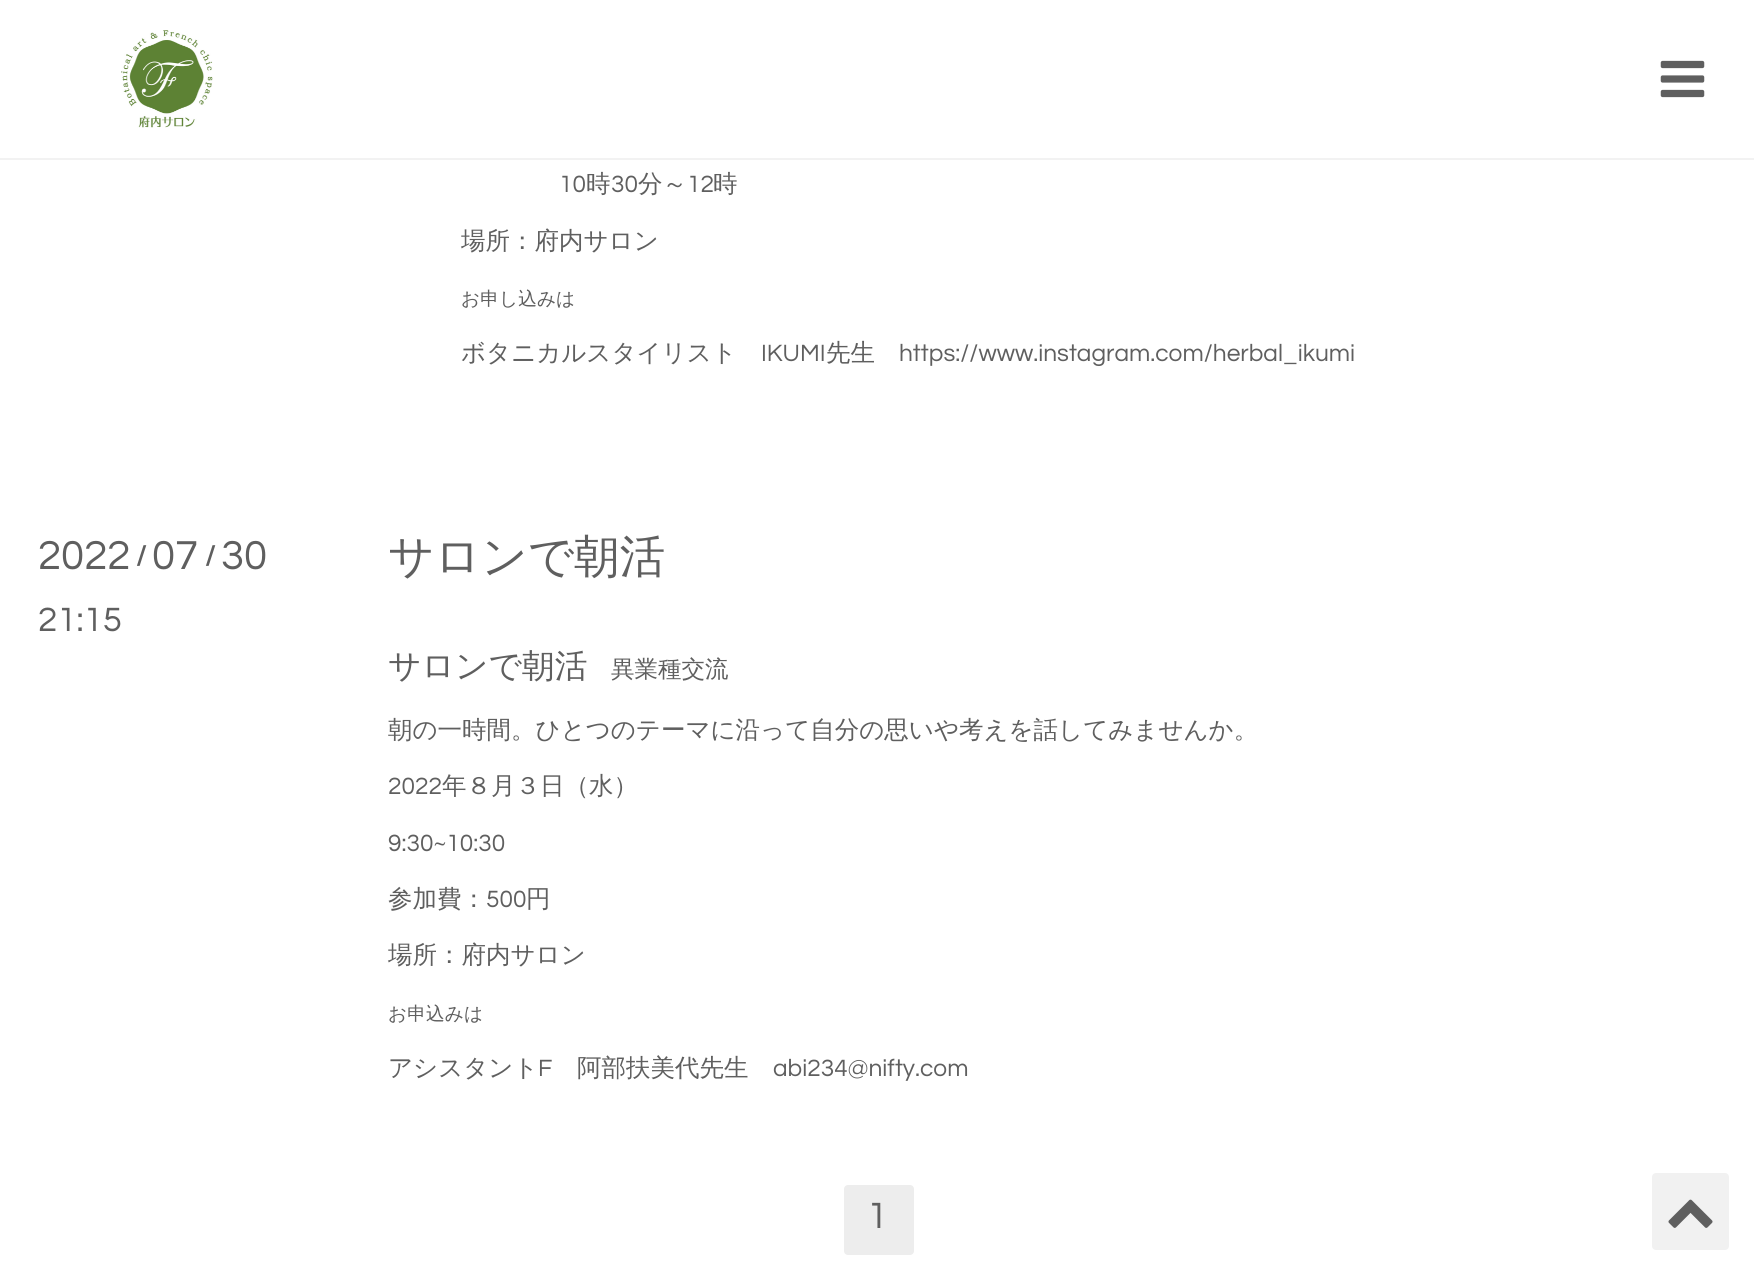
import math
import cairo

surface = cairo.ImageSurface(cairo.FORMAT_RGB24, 1754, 1275)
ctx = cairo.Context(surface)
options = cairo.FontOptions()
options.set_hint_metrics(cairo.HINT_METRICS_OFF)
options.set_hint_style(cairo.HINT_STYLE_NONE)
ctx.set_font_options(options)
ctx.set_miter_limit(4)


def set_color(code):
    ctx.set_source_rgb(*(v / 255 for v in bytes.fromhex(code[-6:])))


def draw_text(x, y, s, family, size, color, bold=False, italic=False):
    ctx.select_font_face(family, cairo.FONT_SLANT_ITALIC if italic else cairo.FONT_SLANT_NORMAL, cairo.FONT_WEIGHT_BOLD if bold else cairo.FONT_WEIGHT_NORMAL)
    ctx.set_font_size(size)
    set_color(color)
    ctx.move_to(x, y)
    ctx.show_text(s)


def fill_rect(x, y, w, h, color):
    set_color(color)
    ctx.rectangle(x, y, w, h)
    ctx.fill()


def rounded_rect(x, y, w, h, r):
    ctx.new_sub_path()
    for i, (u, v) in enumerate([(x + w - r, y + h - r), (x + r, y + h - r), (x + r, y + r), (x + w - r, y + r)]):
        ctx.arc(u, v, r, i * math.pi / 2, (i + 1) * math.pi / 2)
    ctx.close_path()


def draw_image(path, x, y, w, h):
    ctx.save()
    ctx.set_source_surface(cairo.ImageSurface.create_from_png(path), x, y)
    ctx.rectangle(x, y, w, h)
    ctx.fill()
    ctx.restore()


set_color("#ffffff")
ctx.paint()
fill_rect(0, 158, 1754, 2, "#f2f2f2")
draw_image("assets/img1.png", 121, 30, 92, 98)
draw_image("assets/img2.png", 1660, 60, 45, 38)
draw_text(559, 192, "10", "Questrial", 24.5, "#5f5f5f")
draw_text(586, 192, "時", "WenQuanYi Zen Hei Medium", 24.5, "#5f5f5f")
draw_text(611, 192, "30", "Questrial", 24.5, "#5f5f5f")
draw_text(638, 192, "分～", "WenQuanYi Zen Hei Medium", 24.5, "#5f5f5f")
draw_text(687, 192, "12", "Questrial", 24.5, "#5f5f5f")
draw_text(713, 192, "時", "WenQuanYi Zen Hei Medium", 24.5, "#5f5f5f")
draw_text(461, 249, "場所：府内サロン", "WenQuanYi Zen Hei Medium", 24.5, "#5f5f5f")
draw_text(461, 305, "お申し込みは", "WenQuanYi Zen Hei Medium", 18.75, "#5f5f5f")
draw_text(461, 361, "ボタニカルスタイリスト", "WenQuanYi Zen Hei Medium", 24.5, "#5f5f5f")
draw_text(761, 361, "IKUMI", "Questrial", 24.5, "#5f5f5f")
draw_text(826, 361, "先生", "WenQuanYi Zen Hei Medium", 24.5, "#5f5f5f")
draw_text(899, 361, "https://www.instagram.com/herbal_ikumi", "Questrial", 24.5, "#5f5f5f")
draw_text(38, 569, "2022", "Questrial", 42, "#5f5f5f")
draw_text(136, 565, "/", "Questrial", 28, "#5f5f5f", bold=True)
draw_text(152, 569, "07", "Questrial", 42, "#5f5f5f")
draw_text(205, 565, "/", "Questrial", 28, "#5f5f5f", bold=True)
draw_text(221, 569, "30", "Questrial", 42, "#5f5f5f")
draw_text(38, 631, "21:15", "Questrial", 35, "#5f5f5f")
draw_text(388, 572, "サロンで朝活", "WenQuanYi Zen Hei Medium", 45.5, "#5f5f5f")
draw_text(388, 677, "サロンで朝活", "WenQuanYi Zen Hei Medium", 32.75, "#5f5f5f")
draw_text(611, 677, "異業種交流", "WenQuanYi Zen Hei Medium", 23.5, "#5f5f5f")
draw_text(388, 738, "朝の一時間。ひとつのテーマに沿って自分の思いや考えを話してみませんか。", "WenQuanYi Zen Hei Medium", 24.5, "#5f5f5f")
draw_text(388, 794, "2022", "Questrial", 24.5, "#5f5f5f")
draw_text(442, 794, "年８月３日（水）", "WenQuanYi Zen Hei Medium", 24.5, "#5f5f5f")
draw_text(388, 851, "9:30~10:30", "Questrial", 24.5, "#5f5f5f")
draw_text(388, 907, "参加費：", "WenQuanYi Zen Hei Medium", 24.5, "#5f5f5f")
draw_text(486, 907, "500", "Questrial", 24.5, "#5f5f5f")
draw_text(526, 907, "円", "WenQuanYi Zen Hei Medium", 24.5, "#5f5f5f")
draw_text(388, 963, "場所：府内サロン", "WenQuanYi Zen Hei Medium", 24.5, "#5f5f5f")
draw_text(388, 1020, "お申込みは", "WenQuanYi Zen Hei Medium", 18.75, "#5f5f5f")
draw_text(388, 1076, "アシスタント", "WenQuanYi Zen Hei Medium", 24.5, "#5f5f5f")
draw_text(538, 1076, "F", "Questrial", 24.5, "#5f5f5f")
draw_text(577, 1076, "阿部扶美代先生", "WenQuanYi Zen Hei Medium", 24.5, "#5f5f5f")
draw_text(773, 1076, "abi234@nifty.com", "Questrial", 24.5, "#5f5f5f")
set_color("#ededed")
rounded_rect(844, 1185, 70, 70, 4)
ctx.fill()
draw_text(867, 1228, "1", "Questrial", 38, "#5f5f5f")
set_color("#f1f1f1")
rounded_rect(1652, 1173, 77, 77, 4)
ctx.fill()
draw_image("assets/img3.png", 1668, 1199, 45, 29)
surface.write_to_png("output.png")
